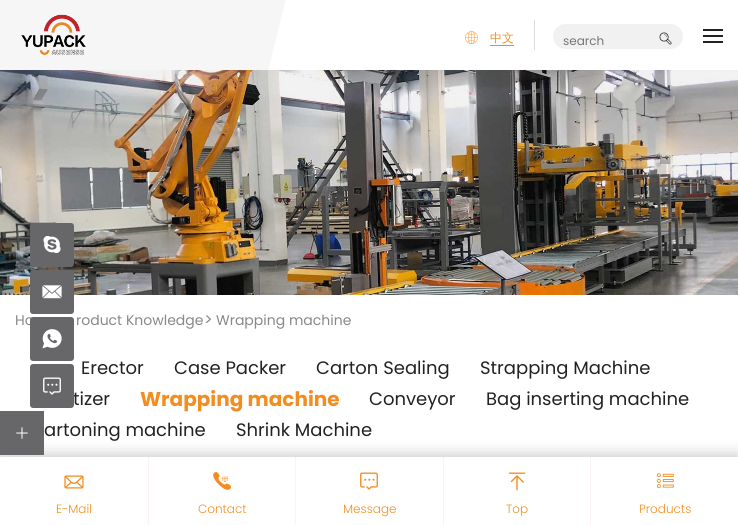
import math
import cairo

surface = cairo.ImageSurface(cairo.FORMAT_RGB24, 738, 525)
ctx = cairo.Context(surface)
options = cairo.FontOptions()
options.set_hint_metrics(cairo.HINT_METRICS_OFF)
options.set_hint_style(cairo.HINT_STYLE_NONE)
ctx.set_font_options(options)
ctx.set_miter_limit(4)


def set_color(code):
    ctx.set_source_rgb(*(v / 255 for v in bytes.fromhex(code[-6:])))


def draw_text(x, y, s, family, size, color, bold=False, italic=False):
    ctx.select_font_face(family, cairo.FONT_SLANT_ITALIC if italic else cairo.FONT_SLANT_NORMAL, cairo.FONT_WEIGHT_BOLD if bold else cairo.FONT_WEIGHT_NORMAL)
    ctx.set_font_size(size)
    set_color(color)
    ctx.move_to(x, y)
    ctx.show_text(s)


def fill_rect(x, y, w, h, color):
    set_color(color)
    ctx.rectangle(x, y, w, h)
    ctx.fill()


def rounded_rect(x, y, w, h, r):
    ctx.new_sub_path()
    for i, (u, v) in enumerate([(x + w - r, y + h - r), (x + r, y + h - r), (x + r, y + r), (x + w - r, y + r)]):
        ctx.arc(u, v, r, i * math.pi / 2, (i + 1) * math.pi / 2)
    ctx.close_path()


def draw_shadow(x, y, w, h, r, blur, alpha):
    ctx.push_group_with_content(cairo.CONTENT_ALPHA)
    ctx.set_operator(cairo.OPERATOR_SOURCE)
    for i in range(15, -16, -2):
        e = blur * i / 6
        if min(w, h) + 2 * e > 0:
            ctx.set_source_rgba(0, 0, 0, alpha * math.erfc((i - 1) / 8.5) / 2)
            rounded_rect(x - e, y - e, w + 2 * e, h + 2 * e, max(0, min(r + e + blur * .6, min(w, h) / 2 + e)))
            ctx.fill()
    ctx.mask(ctx.pop_group())


def draw_image(path, x, y, w, h):
    ctx.save()
    ctx.set_source_surface(cairo.ImageSurface.create_from_png(path), x, y)
    ctx.rectangle(x, y, w, h)
    ctx.fill()
    ctx.restore()


set_color("#ffffff")
ctx.paint()
fill_rect(0, 0, 269, 70, "#f6f6f6")
draw_image("assets/img1.png", 269, 0, 469, 70)
draw_image("assets/img2.png", 21, 14, 65, 41)
draw_image("assets/img3.png", 465, 31, 13, 13)
fill_rect(490, 45, 24, 1, "#f38d1f")
draw_text(490, 42, "中文", "WenQuanYi Zen Hei Medium", 12, "#f38d1f")
fill_rect(534, 20, 1, 30, "#dcdcdc")
set_color("#f1f1f1")
rounded_rect(553, 24, 130, 25, 12.5)
ctx.fill()
draw_text(563, 45, "search", "Poppins", 12, "#757575")
draw_image("assets/img4.png", 659, 32, 13, 13)
fill_rect(703, 29, 20, 2, "#222222")
fill_rect(703, 35, 20, 2, "#222222")
fill_rect(703, 41, 20, 2, "#222222")
draw_image("assets/img5.png", 0, 70, 738, 225)
set_color("#676769")
rounded_rect(30, 223, 44, 44, 3)
ctx.fill()
draw_image("assets/img6.png", 43, 235, 18, 19)
rounded_rect(30, 270, 44, 44, 3)
ctx.fill()
draw_image("assets/img7.png", 42, 285, 20, 14)
draw_text(15, 325, "Ho", "Poppins", 14, "#888888")
set_color("#676769")
rounded_rect(30, 317, 44, 44, 3)
ctx.fill()
draw_image("assets/img8.png", 42, 329, 20, 20)
draw_text(73, 405, "tizer", "Poppins", 18, "#222222")
set_color("#676769")
rounded_rect(30, 364, 44, 44, 3)
ctx.fill()
draw_image("assets/img9.png", 43, 377, 18, 18)
draw_text(76, 325, "roduct Knowledge", "Poppins", 14, "#888888")
draw_text(204, 325, ">", "Poppins", 16, "#888888")
draw_text(216, 325, "Wrapping machine", "Poppins", 14, "#888888")
draw_text(81, 374, "Erector", "Poppins", 18, "#222222")
draw_text(174, 374, "Case Packer", "Poppins", 18, "#222222")
draw_text(316, 374, "Carton Sealing", "Poppins", 18, "#222222")
draw_text(480, 374, "Strapping Machine", "Poppins", 18, "#222222")
draw_text(140, 406, "Wrapping machine", "Poppins", 20, "#f38d1f", bold=True)
draw_text(369, 405, "Conveyor", "Poppins", 18, "#222222")
draw_text(486, 405, "Bag inserting machine", "Poppins", 18, "#222222")
draw_text(44, 436, "artoning machine", "Poppins", 18, "#222222")
draw_text(236, 436, "Shrink Machine", "Poppins", 18, "#222222")
set_color("#000000")
draw_shadow(-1, 454, 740, 70, 0, 7, 0.2)
fill_rect(0, 411, 44, 44, "#676769")
draw_image("assets/img10.png", 16, 427, 12, 12)
fill_rect(0, 457, 738, 68, "#ffffff")
draw_image("assets/img11.png", 64, 475, 20, 14)
draw_text(56, 513, "E-Mail", "Poppins Light", 12, "#f38d1f")
fill_rect(148, 457, 1, 68, "#fcf3f2")
draw_image("assets/img12.png", 213, 472, 18, 18)
draw_text(198, 513, "Contact", "Poppins Light", 12, "#f38d1f")
fill_rect(295, 457, 1, 68, "#fcf3f2")
draw_image("assets/img13.png", 360, 472, 18, 18)
draw_text(343, 513, "Message", "Poppins Light", 12, "#f38d1f")
fill_rect(443, 457, 1, 68, "#fcf3f2")
draw_image("assets/img14.png", 508, 472, 18, 19)
draw_text(506, 513, "Top", "Poppins Light", 12, "#f38d1f")
fill_rect(590, 457, 1, 68, "#fcf3f2")
draw_image("assets/img15.png", 656, 473, 18, 16)
draw_text(639, 513, "Products", "Poppins Light", 12, "#f38d1f")
surface.write_to_png("output.png")
